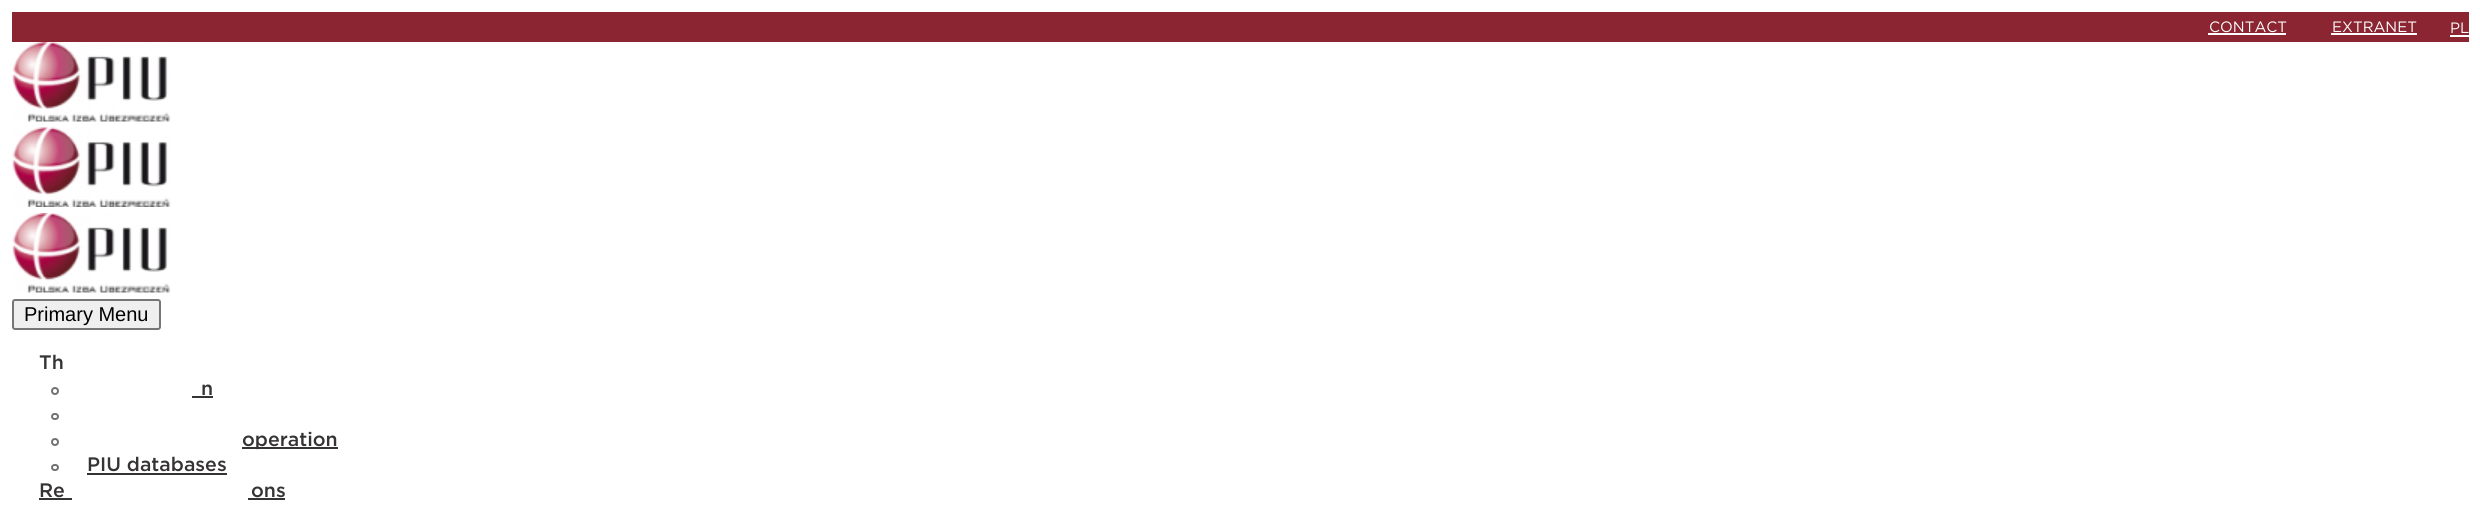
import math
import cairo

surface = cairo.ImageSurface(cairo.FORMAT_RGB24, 2480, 513)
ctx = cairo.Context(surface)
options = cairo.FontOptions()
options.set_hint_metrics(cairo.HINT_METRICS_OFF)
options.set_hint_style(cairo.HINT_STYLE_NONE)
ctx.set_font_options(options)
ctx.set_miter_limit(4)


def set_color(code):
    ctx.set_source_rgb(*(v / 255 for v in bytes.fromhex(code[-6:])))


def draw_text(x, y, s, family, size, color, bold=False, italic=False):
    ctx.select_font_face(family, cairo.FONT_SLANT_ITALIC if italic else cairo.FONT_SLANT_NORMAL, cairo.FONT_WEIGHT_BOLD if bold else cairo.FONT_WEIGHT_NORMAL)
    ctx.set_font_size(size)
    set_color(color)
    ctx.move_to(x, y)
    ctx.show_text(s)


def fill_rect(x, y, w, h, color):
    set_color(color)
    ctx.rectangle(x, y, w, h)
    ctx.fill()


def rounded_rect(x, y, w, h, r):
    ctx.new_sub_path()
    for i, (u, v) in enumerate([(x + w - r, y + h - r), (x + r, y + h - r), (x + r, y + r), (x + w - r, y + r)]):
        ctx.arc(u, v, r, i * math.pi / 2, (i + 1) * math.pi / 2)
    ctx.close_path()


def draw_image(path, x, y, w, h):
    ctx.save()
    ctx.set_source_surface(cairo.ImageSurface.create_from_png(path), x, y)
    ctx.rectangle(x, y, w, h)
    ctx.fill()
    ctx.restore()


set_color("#ffffff")
ctx.paint()
fill_rect(12, 12, 2457, 30, "#8b2531")
draw_text(2209, 32, "CONTACT", "Gotham", 15, "#ffffff")
fill_rect(2208, 33, 78, 2, "#ffffff")
draw_text(2332, 32, "EXTRANET", "Gotham", 15, "#ffffff")
fill_rect(2331, 33, 86, 2, "#ffffff")
draw_text(2450, 33, "PL", "Gotham", 15, "#ffffff")
fill_rect(2450, 35, 19, 2, "#ffffff")
draw_image("assets/img1.png", 12, 42, 159, 80)
draw_image("assets/img2.png", 12, 127, 159, 80)
draw_image("assets/img1.png", 12, 213, 159, 80)
set_color("#efefef")
rounded_rect(13, 300, 147, 29, 2)
ctx.fill_preserve()
set_color("#767676")
ctx.stroke()
draw_text(24, 321, "Primary Menu", "Liberation Sans", 20, "#000000")
draw_text(39, 369, "Th", "Gotham Medium", 19.5, "#353333")
ctx.new_path()
ctx.arc(55, 391, 3, 0, 2 * math.pi)
set_color("#737272")
ctx.stroke()
draw_text(201, 395, "n", "Gotham Medium", 19.5, "#353333")
fill_rect(192, 396, 21, 2, "#353333")
rounded_rect(52, 414, 6, 5, 2.5)
set_color("#737272")
ctx.stroke()
ctx.arc(55, 442, 3, 0, 2 * math.pi)
ctx.stroke()
fill_rect(242, 447, 96, 2, "#353333")
draw_text(242, 446, "operation", "Gotham Medium", 19.5, "#353333")
rounded_rect(52, 465, 6, 5, 2.5)
set_color("#737272")
ctx.stroke()
draw_text(87, 471, "PIU databases", "Gotham Medium", 19.5, "#353333")
fill_rect(87, 473, 140, 2, "#353333")
draw_text(39, 497, "Re", "Gotham Medium", 19.5, "#353333")
draw_text(251, 497, "ons", "Gotham Medium", 19.5, "#353333")
fill_rect(39, 498, 246, 2, "#353333")
fill_rect(72, 498, 176, 2, "#ffffff")
surface.write_to_png("output.png")
